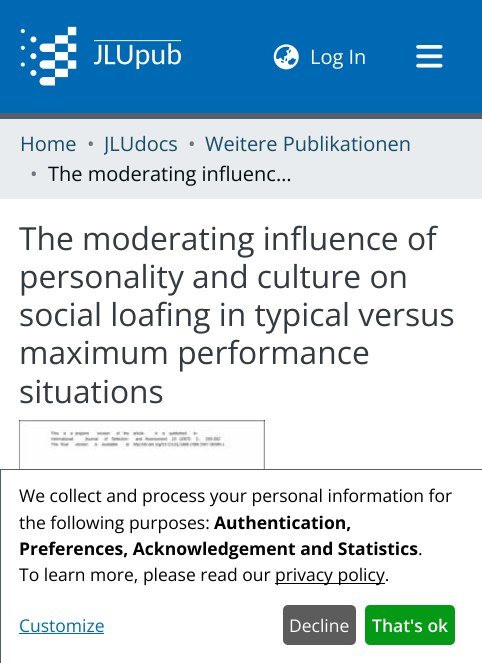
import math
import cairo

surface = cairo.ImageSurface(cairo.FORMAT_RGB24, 482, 663)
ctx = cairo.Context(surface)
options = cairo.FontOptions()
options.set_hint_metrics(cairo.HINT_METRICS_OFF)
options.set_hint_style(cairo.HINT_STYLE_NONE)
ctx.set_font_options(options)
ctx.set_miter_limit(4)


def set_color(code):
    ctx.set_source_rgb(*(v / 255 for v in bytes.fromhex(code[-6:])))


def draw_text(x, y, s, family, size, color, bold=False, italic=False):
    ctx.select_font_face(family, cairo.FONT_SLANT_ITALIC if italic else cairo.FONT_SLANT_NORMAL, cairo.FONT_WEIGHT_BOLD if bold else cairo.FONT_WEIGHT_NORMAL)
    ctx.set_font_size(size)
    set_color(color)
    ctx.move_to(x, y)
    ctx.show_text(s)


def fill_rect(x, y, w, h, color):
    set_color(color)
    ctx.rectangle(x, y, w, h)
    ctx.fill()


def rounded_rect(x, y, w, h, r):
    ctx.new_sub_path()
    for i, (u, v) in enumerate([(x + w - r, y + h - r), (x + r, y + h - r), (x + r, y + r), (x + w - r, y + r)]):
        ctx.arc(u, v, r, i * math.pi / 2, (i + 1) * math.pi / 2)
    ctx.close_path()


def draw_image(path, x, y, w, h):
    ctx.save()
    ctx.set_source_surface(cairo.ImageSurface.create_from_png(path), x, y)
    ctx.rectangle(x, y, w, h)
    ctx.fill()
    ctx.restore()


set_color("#ffffff")
ctx.paint()
fill_rect(0, 113, 482, 6, "#53606b")
fill_rect(0, 0, 482, 113, "#0069b3")
draw_image("assets/img1.png", 20, 26, 162, 60)
draw_image("assets/img2.png", 273, 44, 26, 26)
draw_text(310, 64, "Log In", "Open Sans", 20, "#ffffff")
draw_image("assets/img3.png", 416, 45, 27, 23)
fill_rect(0, 119, 482, 80, "#e9ecef")
draw_text(20, 151, "Home", "Open Sans", 20, "#154e66")
draw_text(87, 151, "•", "Open Sans", 20, "#6c757d")
ctx.save()
ctx.rectangle(104, 129, 74, 30)
ctx.clip()
draw_text(104, 151, "JLUdocs", "Open Sans", 20, "#154e66")
ctx.restore()
draw_text(188, 151, "•", "Open Sans", 20, "#6c757d")
draw_text(205, 151, "Weitere Publikationen", "Open Sans", 20, "#154e66")
draw_text(30, 181, "•", "Open Sans", 20, "#6c757d")
ctx.save()
ctx.rectangle(48, 159, 250, 30)
ctx.clip()
draw_text(48, 181, "The moderating influenc…", "Open Sans", 20, "#040d11")
ctx.restore()
draw_text(19, 250, "The moderating influence of", "Open Sans", 31.75, "#343a40")
draw_text(19, 288, "personality and culture on", "Open Sans", 31.75, "#343a40")
draw_text(19, 326, "social loafing in typical versus", "Open Sans", 31.75, "#343a40")
draw_text(19, 364, "maximum performance", "Open Sans", 31.75, "#343a40")
draw_text(19, 403, "situations", "Open Sans", 31.75, "#343a40")
draw_image("assets/img4.png", 18, 420, 247, 49)
ctx.rectangle(0.5, 469.5, 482, 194)
set_color("#53606b")
ctx.set_line_width(1)
ctx.stroke()
draw_text(19, 502, "We collect and process your personal information for", "Open Sans", 17.5, "#000000")
draw_text(19, 529, "the following purposes:", "Open Sans", 17.5, "#000000")
draw_text(214, 529, "Authentication,", "Open Sans", 17.5, "#000000", bold=True)
draw_text(19, 555, "Preferences, Acknowledgement and Statistics", "Open Sans", 17.5, "#000000", bold=True)
draw_text(418, 555, ".", "Open Sans", 17.5, "#000000")
draw_text(19, 581, "To learn more, please read our", "Open Sans", 17.5, "#000000")
fill_rect(275, 583, 110, 1, "#000000")
draw_text(275, 581, "privacy policy.", "Open Sans", 17.5, "#000000")
draw_text(19, 632, "Customize", "Open Sans", 17.5, "#0069b3")
fill_rect(19, 633, 85, 1, "#0069b3")
set_color("#5c5c5c")
rounded_rect(283, 605, 73, 40, 5)
ctx.fill()
draw_text(289, 632, "Decline", "Open Sans", 17.5, "#ffffff")
set_color("#049a16")
rounded_rect(365, 605, 90, 40, 5)
ctx.fill()
draw_text(372, 632, "That's ok", "Open Sans SemiBold", 17.5, "#ffffff")
surface.write_to_png("output.png")
